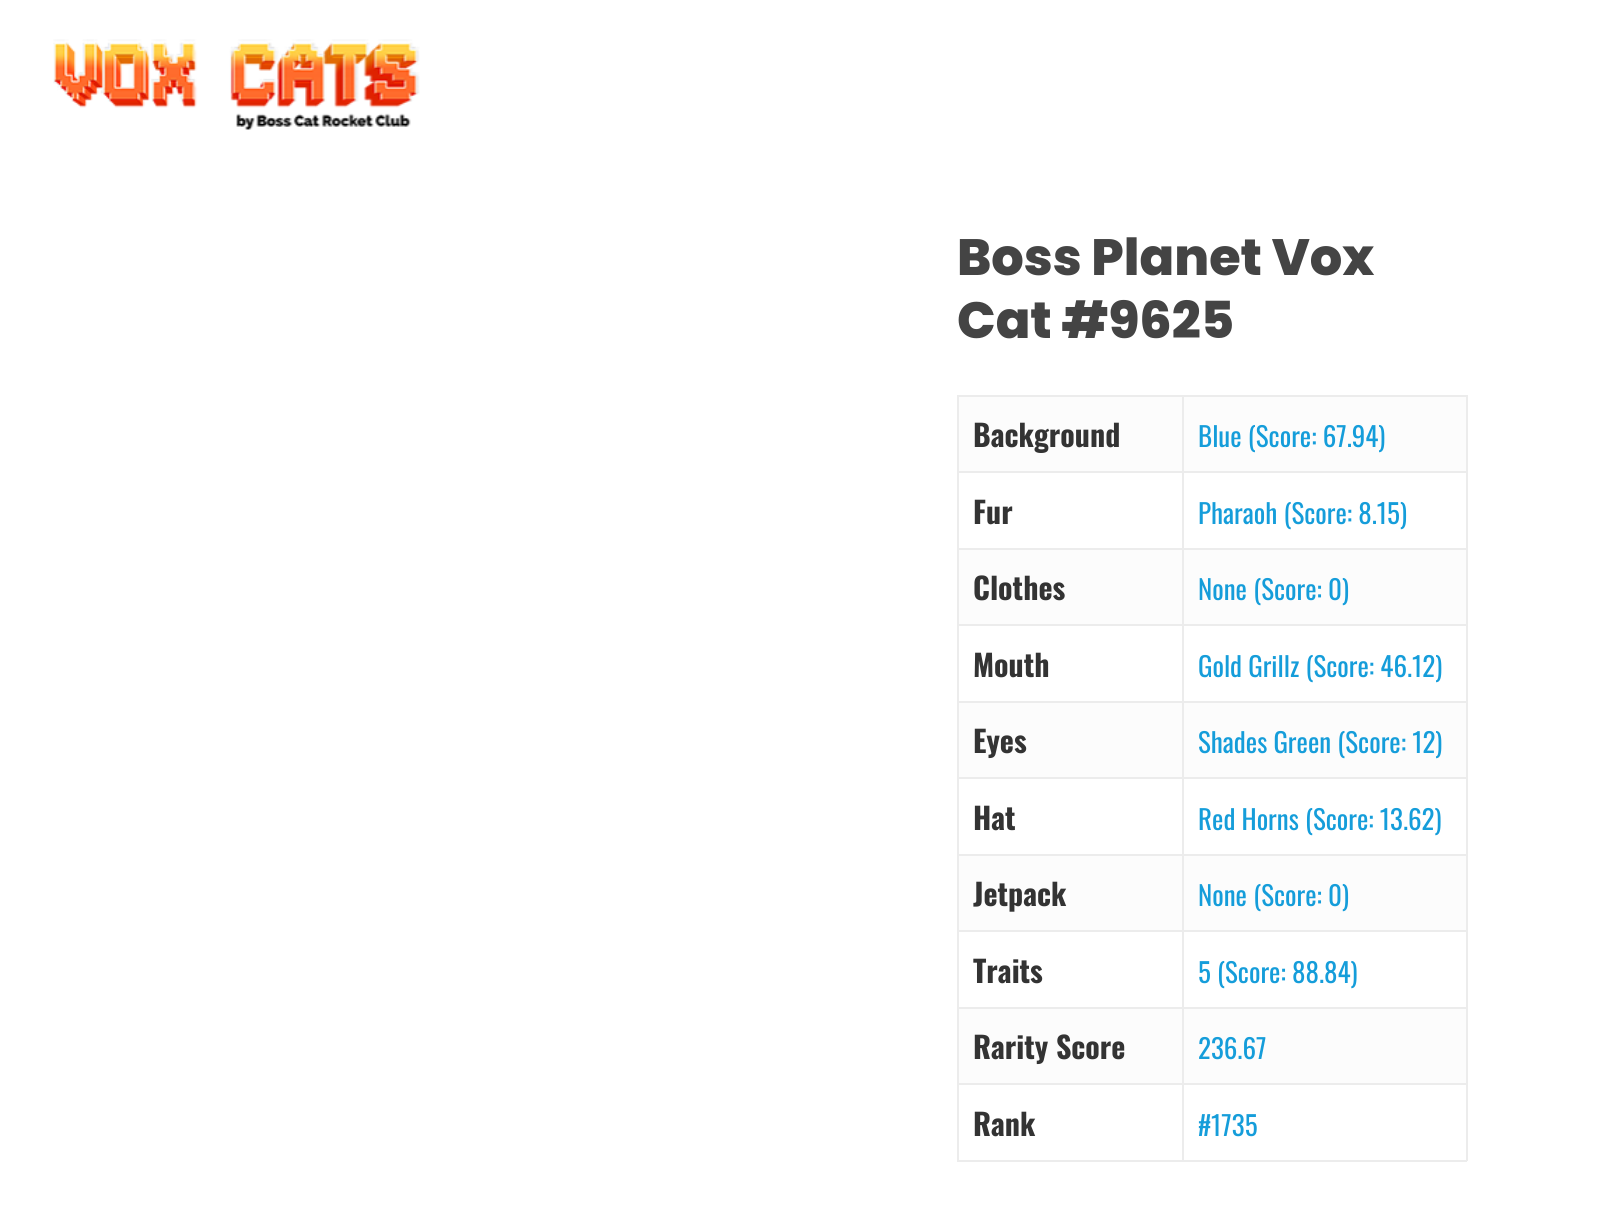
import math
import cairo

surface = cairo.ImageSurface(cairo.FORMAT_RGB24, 1602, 1230)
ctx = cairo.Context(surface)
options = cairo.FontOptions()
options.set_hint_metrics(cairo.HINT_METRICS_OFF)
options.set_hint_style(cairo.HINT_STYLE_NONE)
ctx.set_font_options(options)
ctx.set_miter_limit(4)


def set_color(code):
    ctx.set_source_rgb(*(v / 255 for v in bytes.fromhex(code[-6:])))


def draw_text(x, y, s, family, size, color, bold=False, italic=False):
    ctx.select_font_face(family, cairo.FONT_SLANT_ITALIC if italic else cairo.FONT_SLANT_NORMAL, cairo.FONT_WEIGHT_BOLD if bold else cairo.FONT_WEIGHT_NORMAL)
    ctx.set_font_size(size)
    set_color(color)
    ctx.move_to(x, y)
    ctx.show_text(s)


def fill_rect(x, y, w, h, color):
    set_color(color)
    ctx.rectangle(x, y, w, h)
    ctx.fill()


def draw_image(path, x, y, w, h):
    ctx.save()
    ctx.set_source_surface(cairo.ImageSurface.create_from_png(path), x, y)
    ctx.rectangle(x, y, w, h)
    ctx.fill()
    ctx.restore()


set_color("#ffffff")
ctx.paint()
draw_image("assets/img1.png", 53, 39, 367, 91)
draw_text(957, 275, "Boss Planet Vox", "Poppins ExtraBold", 51, "#444444")
draw_text(957, 338, "Cat #9625", "Poppins ExtraBold", 51, "#444444")
fill_rect(957, 395, 510, 2, "#ececec")
fill_rect(959, 397, 507, 74, "#fcfcfc")
fill_rect(959, 550, 507, 74, "#fcfcfc")
fill_rect(959, 703, 507, 74, "#fcfcfc")
fill_rect(959, 856, 507, 74, "#fcfcfc")
fill_rect(959, 1009, 507, 74, "#fcfcfc")
fill_rect(1466, 395, 2, 766, "#ececec")
fill_rect(1182, 1160, 285, 2, "#ececec")
fill_rect(1182, 1083, 2, 78, "#ececec")
fill_rect(1182, 1083, 285, 2, "#ececec")
fill_rect(1182, 1007, 2, 78, "#ececec")
fill_rect(1182, 1007, 285, 2, "#ececec")
fill_rect(1182, 930, 2, 78, "#ececec")
fill_rect(1182, 930, 285, 2, "#ececec")
fill_rect(1182, 854, 2, 78, "#ececec")
fill_rect(1182, 854, 285, 2, "#ececec")
fill_rect(1182, 777, 2, 78, "#ececec")
fill_rect(1182, 777, 285, 2, "#ececec")
fill_rect(1182, 701, 2, 78, "#ececec")
fill_rect(1182, 701, 285, 2, "#ececec")
fill_rect(1182, 624, 2, 78, "#ececec")
fill_rect(1182, 624, 285, 2, "#ececec")
fill_rect(1182, 548, 2, 78, "#ececec")
fill_rect(1182, 548, 285, 2, "#ececec")
fill_rect(1182, 471, 2, 78, "#ececec")
fill_rect(1182, 471, 285, 2, "#ececec")
fill_rect(1182, 395, 2, 78, "#ececec")
fill_rect(957, 1160, 227, 2, "#ececec")
fill_rect(957, 1083, 2, 78, "#ececec")
fill_rect(957, 1083, 227, 2, "#ececec")
fill_rect(957, 1007, 2, 78, "#ececec")
fill_rect(957, 1007, 227, 2, "#ececec")
fill_rect(957, 930, 2, 78, "#ececec")
fill_rect(957, 930, 227, 2, "#ececec")
fill_rect(957, 854, 2, 78, "#ececec")
fill_rect(957, 854, 227, 2, "#ececec")
fill_rect(957, 777, 2, 78, "#ececec")
fill_rect(957, 777, 227, 2, "#ececec")
fill_rect(957, 701, 2, 78, "#ececec")
fill_rect(957, 701, 227, 2, "#ececec")
fill_rect(957, 624, 2, 78, "#ececec")
fill_rect(957, 624, 227, 2, "#ececec")
fill_rect(957, 548, 2, 78, "#ececec")
fill_rect(957, 548, 227, 2, "#ececec")
fill_rect(957, 471, 2, 78, "#ececec")
fill_rect(957, 471, 227, 2, "#ececec")
fill_rect(957, 395, 2, 78, "#ececec")
draw_text(973, 447, "Background", "Oswald", 30, "#333333", bold=True)
draw_text(1198, 447, "Blue (Score: 67.94)", "Oswald", 27, "#159dda")
draw_text(973, 524, "Fur", "Oswald", 30, "#333333", bold=True)
draw_text(1198, 524, "Pharaoh (Score: 8.15)", "Oswald", 27, "#159dda")
draw_text(973, 600, "Clothes", "Oswald", 30, "#333333", bold=True)
draw_text(1198, 600, "None (Score: 0)", "Oswald", 27, "#159dda")
draw_text(973, 677, "Mouth", "Oswald", 30, "#333333", bold=True)
draw_text(1198, 677, "Gold Grillz (Score: 46.12)", "Oswald", 27, "#159dda")
draw_text(973, 753, "Eyes", "Oswald", 30, "#333333", bold=True)
draw_text(1198, 753, "Shades Green (Score: 12)", "Oswald", 27, "#159dda")
draw_text(973, 830, "Hat", "Oswald", 30, "#333333", bold=True)
draw_text(1198, 830, "Red Horns (Score: 13.62)", "Oswald", 27, "#159dda")
draw_text(973, 906, "Jetpack", "Oswald", 30, "#333333", bold=True)
draw_text(1198, 906, "None (Score: 0)", "Oswald", 27, "#159dda")
draw_text(973, 983, "Traits", "Oswald", 30, "#333333", bold=True)
draw_text(1198, 983, "5 (Score: 88.84)", "Oswald", 27, "#159dda")
draw_text(973, 1059, "Rarity Score", "Oswald", 30, "#333333", bold=True)
draw_text(1198, 1059, "236.67", "Oswald", 27, "#159dda")
draw_text(973, 1136, "Rank", "Oswald", 30, "#333333", bold=True)
draw_text(1198, 1136, "#1735", "Oswald", 27, "#159dda")
surface.write_to_png("output.png")
